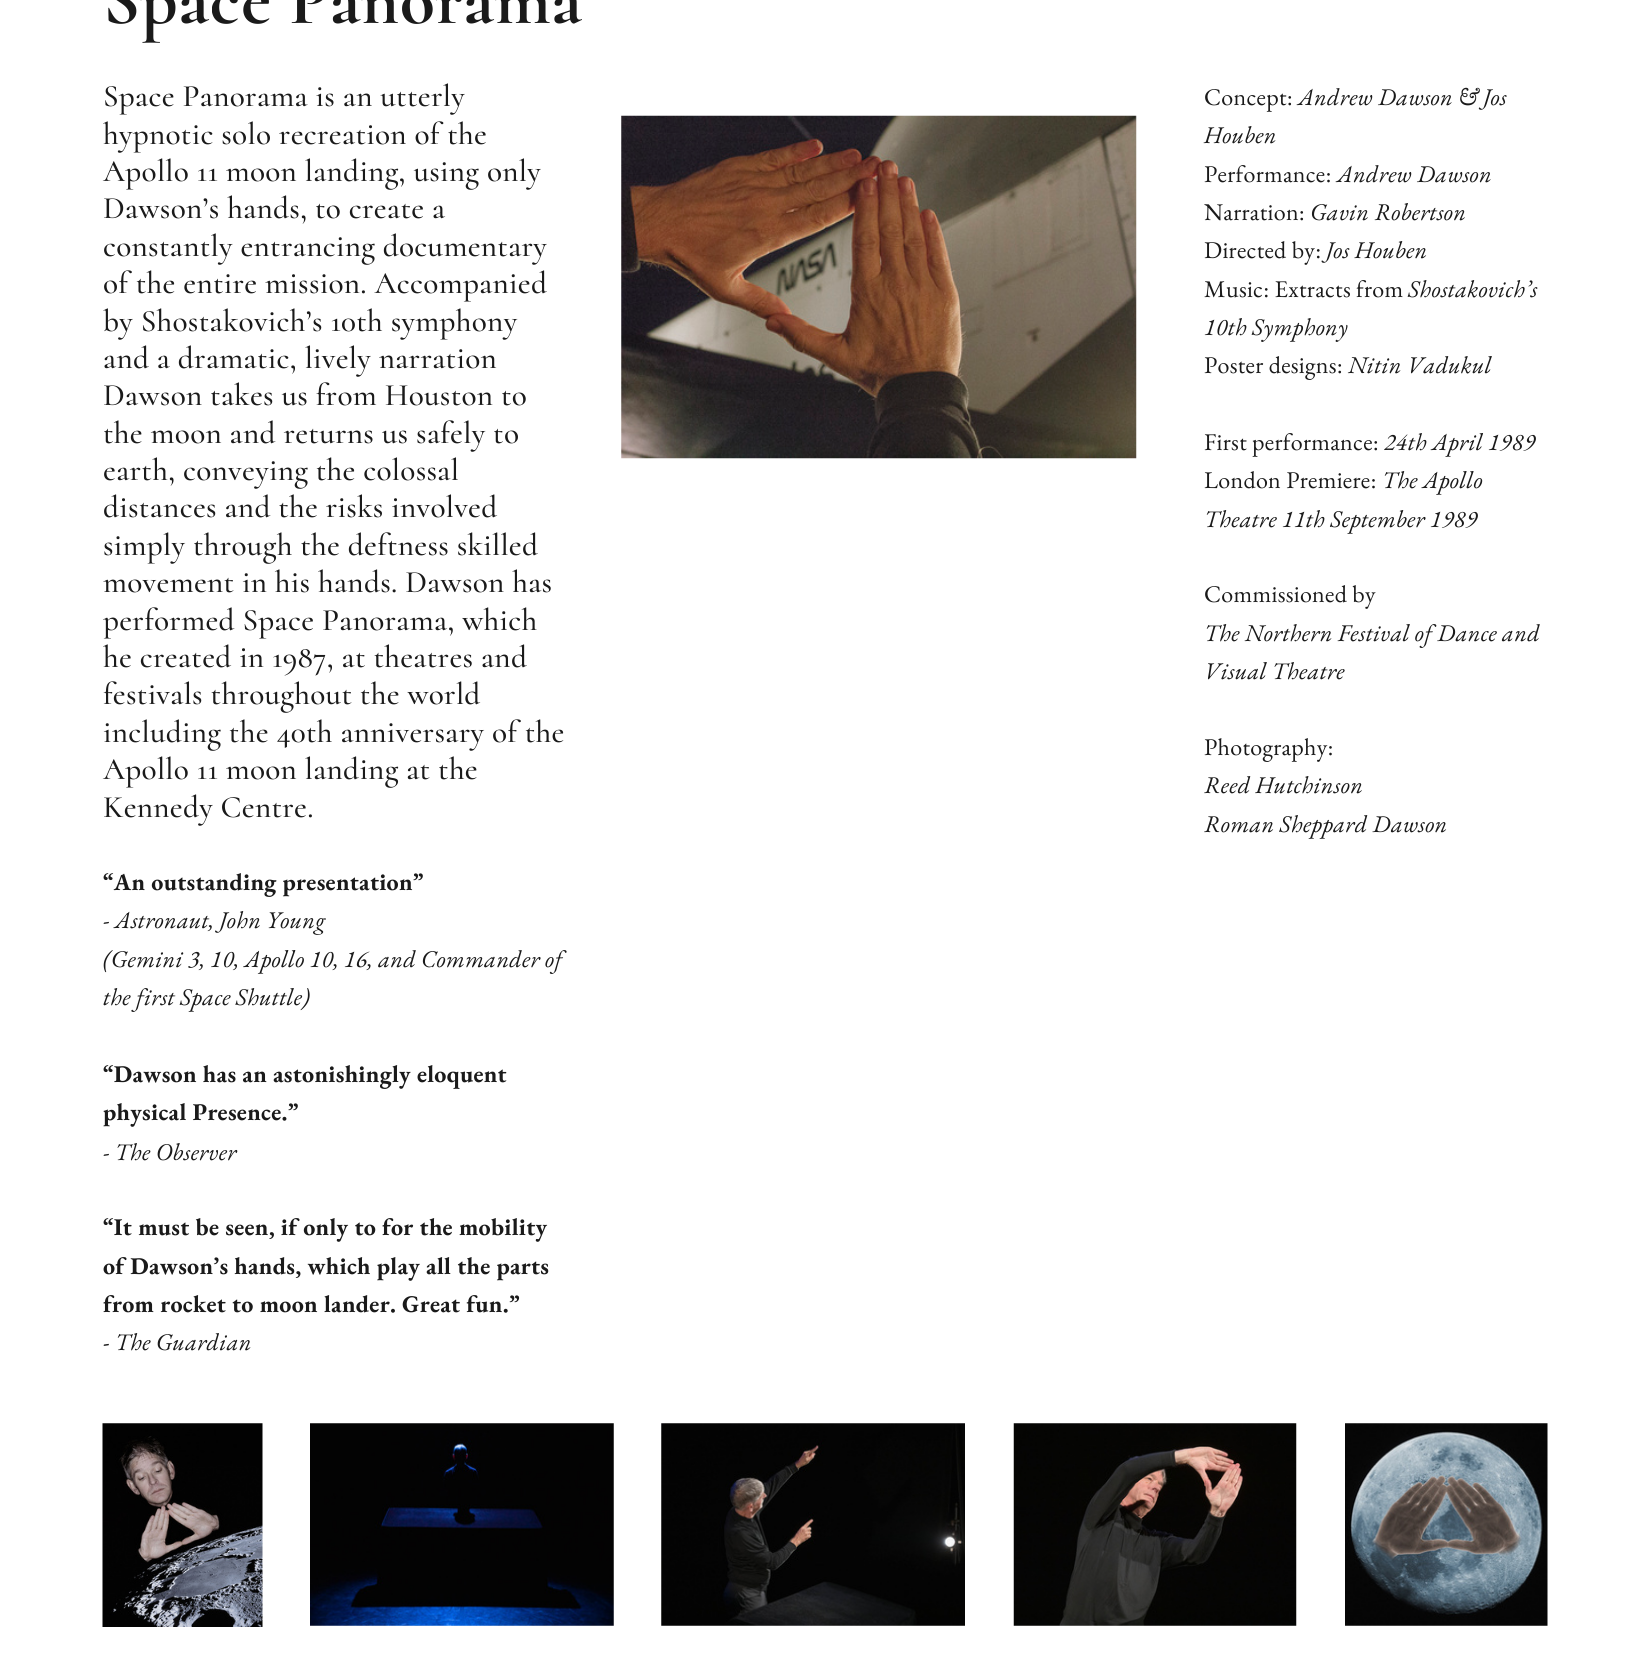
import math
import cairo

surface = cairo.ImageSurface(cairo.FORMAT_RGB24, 1650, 1674)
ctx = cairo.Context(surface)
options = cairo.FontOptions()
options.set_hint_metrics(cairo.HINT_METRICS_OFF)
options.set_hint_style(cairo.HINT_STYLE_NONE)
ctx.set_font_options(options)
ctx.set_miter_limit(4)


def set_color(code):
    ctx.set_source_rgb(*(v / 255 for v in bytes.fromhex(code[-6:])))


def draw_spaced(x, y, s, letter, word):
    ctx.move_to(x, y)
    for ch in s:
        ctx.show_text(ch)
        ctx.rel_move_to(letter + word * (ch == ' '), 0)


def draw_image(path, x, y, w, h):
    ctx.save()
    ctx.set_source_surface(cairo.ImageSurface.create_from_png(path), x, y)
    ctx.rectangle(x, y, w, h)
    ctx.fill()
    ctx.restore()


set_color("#ffffff")
ctx.paint()
ctx.select_font_face("Cormorant", cairo.FONT_SLANT_NORMAL, cairo.FONT_WEIGHT_BOLD)
ctx.set_font_size(72)
set_color("#1a1a1a")
draw_spaced(103, 23, "Space Panorama", 0.75, 0)
ctx.select_font_face("Cormorant Medium")
ctx.set_font_size(31.2)
draw_spaced(103, 106, "Space Panorama is an utterly", 0.3, 0)
draw_spaced(103, 144, "hypnotic solo recreation of the", 0.3, 0)
draw_spaced(103, 181, "Apollo 11 moon landing, using only", 0.3, 0)
draw_spaced(103, 218, "Dawson’s hands, to create a", 0.3, 0)
draw_spaced(103, 256, "constantly entrancing documentary", 0.3, 0)
draw_spaced(103, 293, "of the entire mission. Accompanied", 0.3, 0)
draw_spaced(103, 331, "by Shostakovich’s 10th symphony", 0.3, 0)
draw_spaced(103, 368, "and a dramatic, lively narration", 0.3, 0)
draw_spaced(103, 405, "Dawson takes us from Houston to", 0.3, 0)
draw_spaced(103, 443, "the moon and returns us safely to", 0.3, 0)
draw_spaced(103, 480, "earth, conveying the colossal", 0.3, 0)
draw_spaced(103, 517, "distances and the risks involved", 0.3, 0)
draw_spaced(103, 555, "simply through the deftness skilled", 0.3, 0)
draw_spaced(103, 592, "movement in his hands. Dawson has", 0.3, 0)
draw_spaced(103, 630, "performed Space Panorama, which", 0.3, 0)
draw_spaced(103, 667, "he created in 1987, at theatres and", 0.3, 0)
draw_spaced(103, 704, "festivals throughout the world", 0.3, 0)
draw_spaced(103, 742, "including the 40th anniversary of the", 0.3, 0)
draw_spaced(103, 779, "Apollo 11 moon landing at the", 0.3, 0)
draw_spaced(103, 817, "Kennedy Centre.", 0.3, 0)
ctx.select_font_face("EB Garamond", cairo.FONT_SLANT_NORMAL, cairo.FONT_WEIGHT_BOLD)
ctx.set_font_size(24)
draw_spaced(103, 890, "“An outstanding presentation”", 0.3, 0)
ctx.select_font_face("EB Garamond", cairo.FONT_SLANT_ITALIC)
draw_spaced(103, 928, "- Astronaut, John Young", 0.3, 0)
draw_spaced(103, 967, "(Gemini 3, 10, Apollo 10, 16, and Commander of", 0.3, 0)
draw_spaced(103, 1005, "the first Space Shuttle)", 0.3, 0)
ctx.select_font_face("EB Garamond", cairo.FONT_SLANT_NORMAL, cairo.FONT_WEIGHT_BOLD)
draw_spaced(103, 1082, "“Dawson has an astonishingly eloquent", 0.3, 0)
draw_spaced(103, 1120, "physical Presence.”", 0.3, 0)
ctx.select_font_face("EB Garamond", cairo.FONT_SLANT_ITALIC)
draw_spaced(103, 1160, "- The Observer", 0.3, 0)
ctx.select_font_face("EB Garamond", cairo.FONT_SLANT_NORMAL, cairo.FONT_WEIGHT_BOLD)
draw_spaced(103, 1235, "“It must be seen, if only to for the mobility", 0.3, 0)
draw_spaced(103, 1274, "of Dawson’s hands, which play all the parts", 0.3, 0)
draw_spaced(103, 1312, "from rocket to moon lander. Great fun.”", 0.3, 0)
ctx.select_font_face("EB Garamond")
draw_spaced(103, 1350, "-", 0.3, 0)
ctx.select_font_face("EB Garamond", cairo.FONT_SLANT_ITALIC)
draw_spaced(115, 1350, "The Guardian", 0.3, 0)
draw_image("assets/img1.png", 621, 115, 516, 344)
ctx.select_font_face("EB Garamond")
draw_spaced(1204, 105, "Concept:", 0.3, 0)
ctx.select_font_face("EB Garamond", cairo.FONT_SLANT_ITALIC)
draw_spaced(1298, 105, "Andrew Dawson & Jos", 0.3, 0)
draw_spaced(1204, 143, "Houben", 0.3, 0)
ctx.select_font_face("EB Garamond")
draw_spaced(1204, 182, "Performance:", 0.3, 0)
ctx.select_font_face("EB Garamond", cairo.FONT_SLANT_ITALIC)
draw_spaced(1337, 182, "Andrew Dawson", 0.3, 0)
ctx.select_font_face("EB Garamond")
draw_spaced(1204, 220, "Narration:", 0.3, 0)
ctx.select_font_face("EB Garamond", cairo.FONT_SLANT_ITALIC)
draw_spaced(1310, 220, "Gavin Robertson", 0.3, 0)
ctx.select_font_face("EB Garamond")
draw_spaced(1204, 258, "Directed by:", 0.3, 0)
ctx.select_font_face("EB Garamond", cairo.FONT_SLANT_ITALIC)
draw_spaced(1326, 258, "Jos Houben", 0.3, 0)
ctx.select_font_face("EB Garamond")
draw_spaced(1204, 297, "Music: Extracts from", 0.3, 0)
ctx.select_font_face("EB Garamond", cairo.FONT_SLANT_ITALIC)
draw_spaced(1408, 297, "Shostakovich’s", 0.3, 0)
draw_spaced(1204, 335, "10th Symphony", 0.3, 0)
ctx.select_font_face("EB Garamond")
draw_spaced(1204, 373, "Poster designs:", 0.3, 0)
ctx.select_font_face("EB Garamond", cairo.FONT_SLANT_ITALIC)
draw_spaced(1348, 373, "Nitin Vadukul", 0.3, 0)
ctx.select_font_face("EB Garamond")
draw_spaced(1204, 450, "First performance:", 0.3, 0)
ctx.select_font_face("EB Garamond", cairo.FONT_SLANT_ITALIC)
draw_spaced(1384, 450, "24th April 1989", 0.3, 0)
ctx.select_font_face("EB Garamond")
draw_spaced(1204, 488, "London Premiere:", 0.3, 0)
ctx.select_font_face("EB Garamond", cairo.FONT_SLANT_ITALIC)
draw_spaced(1382, 488, "The Apollo", 0.3, 0)
draw_spaced(1204, 527, "Theatre 11th September 1989", 0.3, 0)
ctx.select_font_face("EB Garamond")
draw_spaced(1204, 602, "Commissioned by", 0.3, 0)
ctx.select_font_face("EB Garamond", cairo.FONT_SLANT_ITALIC)
draw_spaced(1204, 641, "The Northern Festival of Dance and", 0.3, 0)
draw_spaced(1204, 679, "Visual Theatre", 0.3, 0)
ctx.select_font_face("EB Garamond")
draw_spaced(1204, 755, "Photography:", 0.3, 0)
ctx.select_font_face("EB Garamond", cairo.FONT_SLANT_ITALIC)
draw_spaced(1204, 793, "Reed Hutchinson", 0.3, 0)
draw_spaced(1204, 832, "Roman Sheppard Dawson", 0.3, 0)
draw_image("assets/img2.png", 102, 1423, 161, 204)
draw_image("assets/img3.png", 310, 1423, 304, 203)
draw_image("assets/img4.png", 661, 1423, 304, 203)
draw_image("assets/img5.png", 1013, 1423, 284, 203)
draw_image("assets/img6.png", 1345, 1423, 203, 203)
surface.write_to_png("output.png")
